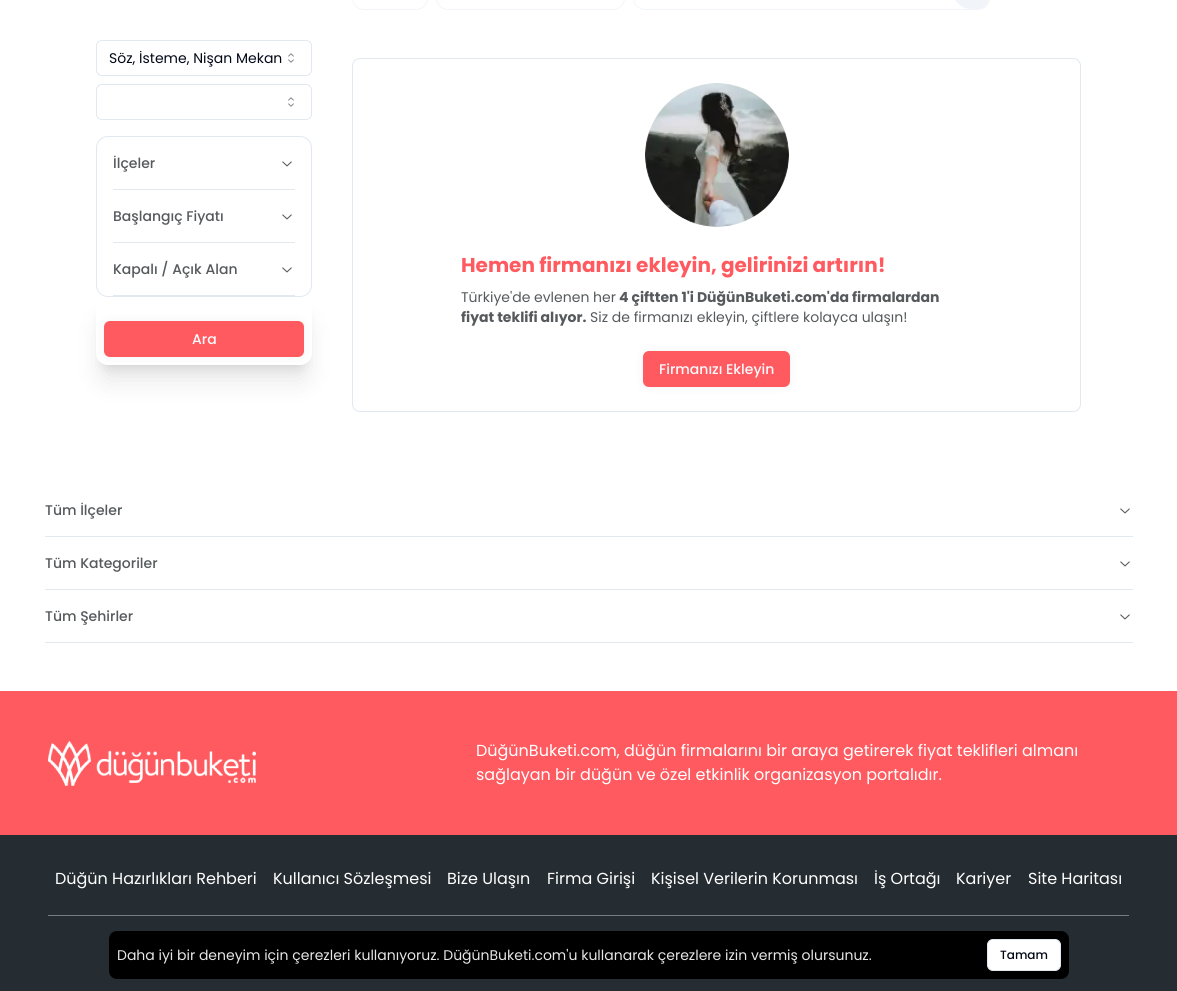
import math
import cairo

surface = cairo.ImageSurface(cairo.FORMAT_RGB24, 1177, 991)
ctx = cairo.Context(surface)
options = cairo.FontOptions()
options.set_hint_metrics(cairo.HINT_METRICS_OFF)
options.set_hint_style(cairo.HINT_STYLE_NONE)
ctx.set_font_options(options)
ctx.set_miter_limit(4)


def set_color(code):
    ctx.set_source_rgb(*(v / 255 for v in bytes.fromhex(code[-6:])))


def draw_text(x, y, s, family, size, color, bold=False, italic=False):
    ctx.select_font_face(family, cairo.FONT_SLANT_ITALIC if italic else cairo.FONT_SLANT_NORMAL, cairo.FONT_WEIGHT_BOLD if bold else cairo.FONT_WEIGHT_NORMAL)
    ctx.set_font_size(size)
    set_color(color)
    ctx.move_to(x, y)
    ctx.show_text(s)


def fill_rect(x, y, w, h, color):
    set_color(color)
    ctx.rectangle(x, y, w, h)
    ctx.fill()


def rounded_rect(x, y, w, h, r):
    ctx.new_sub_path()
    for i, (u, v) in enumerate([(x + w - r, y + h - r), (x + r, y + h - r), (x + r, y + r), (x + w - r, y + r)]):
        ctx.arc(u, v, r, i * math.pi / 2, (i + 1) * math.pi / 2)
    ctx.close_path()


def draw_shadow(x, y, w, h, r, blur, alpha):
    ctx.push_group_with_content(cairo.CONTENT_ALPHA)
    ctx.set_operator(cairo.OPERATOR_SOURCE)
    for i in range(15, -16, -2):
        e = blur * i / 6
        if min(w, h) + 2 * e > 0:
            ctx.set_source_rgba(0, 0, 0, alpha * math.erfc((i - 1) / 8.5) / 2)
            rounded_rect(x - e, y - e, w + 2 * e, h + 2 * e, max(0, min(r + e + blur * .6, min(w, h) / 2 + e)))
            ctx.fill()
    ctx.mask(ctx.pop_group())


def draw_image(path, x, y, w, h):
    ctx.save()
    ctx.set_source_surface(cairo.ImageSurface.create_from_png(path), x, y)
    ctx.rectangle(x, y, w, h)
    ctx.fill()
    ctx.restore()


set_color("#ffffff")
ctx.paint()
rounded_rect(96.5, 40.5, 215, 35, 5.5)
set_color("#e2e8f0")
ctx.set_line_width(1)
ctx.stroke()
draw_text(109, 63, "Söz, İsteme, Nişan Mekan", "Poppins", 14, "#020817")
draw_image("assets/img1.png", 288, 53, 6, 10)
rounded_rect(96.5, 84.5, 215, 35, 5.5)
set_color("#e2e8f0")
ctx.stroke()
draw_image("assets/img1.png", 288, 97, 6, 10)
rounded_rect(96.5, 136.5, 215, 160, 11.5)
ctx.stroke()
fill_rect(113, 189, 182, 1, "#e2e8f0")
draw_text(113, 168, "İlçeler", "Poppins Medium", 14, "#565a5c")
draw_image("assets/img2.png", 282, 161, 10, 6)
fill_rect(113, 242, 182, 1, "#e2e8f0")
draw_text(113, 221, "Başlangıç Fiyatı", "Poppins Medium", 14, "#565a5c")
draw_image("assets/img2.png", 282, 214, 10, 6)
fill_rect(113, 295, 182, 1, "#e2e8f0")
draw_text(113, 274, "Kapalı / Açık Alan", "Poppins Medium", 14, "#565a5c")
draw_image("assets/img2.png", 282, 267, 10, 6)
set_color("#000000")
draw_shadow(102, 311, 204, 56, 6, 5, 0.1)
draw_shadow(101, 322, 206, 58, 7, 12.5, 0.1)
set_color("#ffffff")
rounded_rect(96, 297, 216, 68, 12)
ctx.fill()
set_color("#000000")
draw_shadow(104, 321, 200, 36, 6, 5, 0.05)
set_color("#ff5a5f")
rounded_rect(104, 321, 200, 36, 6)
ctx.fill()
draw_text(192, 344, "Ara", "Poppins Medium", 14, "#f8fafc")
rounded_rect(352.5, -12.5, 75, 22, 11.5)
set_color("#f1f5f9")
ctx.stroke()
rounded_rect(436.5, -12.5, 188, 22, 11.5)
ctx.stroke()
rounded_rect(633.5, -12.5, 356, 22, 11.5)
ctx.stroke()
ctx.new_path()
ctx.move_to(971, -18)
ctx.line_to(978, -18)
ctx.curve_to(984, -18, 989, -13, 989, -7)
ctx.line_to(989, -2)
ctx.curve_to(989, 4, 984, 9, 978, 9)
ctx.line_to(971, 9)
ctx.curve_to(961, 9, 953, 1, 953, -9)
ctx.line_to(953, 0)
ctx.curve_to(953, -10, 961, -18, 971, -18)
ctx.close_path()
ctx.fill()
rounded_rect(352.5, 58.5, 728, 353, 7.5)
set_color("#e2e8f0")
ctx.stroke()
draw_image("assets/img3.png", 645, 83, 144, 144)
draw_text(461, 272, "Hemen firmanızı ekleyin, gelirinizi artırın!", "Poppins", 20, "#ff5a5f", bold=True)
draw_text(461, 302, "Türkiye'de evlenen her", "Poppins", 14, "#565a5c")
draw_text(619, 302, "4 çiftten 1'i DüğünBuketi.com'da firmalardan", "Poppins", 14, "#565a5c", bold=True)
draw_text(461, 322, "fiyat teklifi alıyor.", "Poppins", 14, "#565a5c", bold=True)
draw_text(590, 322, "Siz de firmanızı ekleyin, çiftlere kolayca ulaşın!", "Poppins", 14, "#565a5c")
set_color("#000000")
draw_shadow(643, 351, 147, 36, 6, 5, 0.05)
set_color("#ff5a5f")
rounded_rect(643, 351, 147, 36, 6)
ctx.fill()
draw_text(659, 374, "Firmanızı Ekleyin", "Poppins Medium", 14, "#f8fafc")
fill_rect(45, 536, 1088, 1, "#e2e8f0")
draw_text(45, 515, "Tüm İlçeler", "Poppins Medium", 14, "#565a5c")
draw_image("assets/img2.png", 1120, 508, 10, 6)
fill_rect(45, 589, 1088, 1, "#e2e8f0")
draw_text(45, 568, "Tüm Kategoriler", "Poppins Medium", 14, "#565a5c")
draw_image("assets/img2.png", 1120, 561, 10, 6)
fill_rect(45, 642, 1088, 1, "#e2e8f0")
draw_text(45, 621, "Tüm Şehirler", "Poppins Medium", 14, "#565a5c")
draw_image("assets/img2.png", 1120, 614, 10, 6)
fill_rect(0, 691, 1177, 144, "#ff5a5f")
draw_image("assets/img4.png", 48, 741, 208, 45)
draw_text(476, 756, "DüğünBuketi.com, düğün firmalarını bir araya getirerek fiyat teklifleri almanı", "Poppins", 16, "#ffffff")
draw_text(476, 780, "sağlayan bir düğün ve özel etkinlik organizasyon portalıdır.", "Poppins", 16, "#ffffff")
fill_rect(0, 835, 1177, 156, "#252c32")
draw_text(55, 884, "Düğün Hazırlıkları Rehberi", "Poppins", 16, "#ffffff")
draw_text(273, 884, "Kullanıcı Sözleşmesi", "Poppins", 16, "#ffffff")
draw_text(447, 884, "Bize Ulaşın", "Poppins", 16, "#ffffff")
draw_text(547, 884, "Firma Girişi", "Poppins", 16, "#ffffff")
draw_text(651, 884, "Kişisel Verilerin Korunması", "Poppins", 16, "#ffffff")
draw_text(874, 884, "İş Ortağı", "Poppins", 16, "#ffffff")
draw_text(956, 884, "Kariyer", "Poppins", 16, "#ffffff")
draw_text(1028, 884, "Site Haritası", "Poppins", 16, "#ffffff")
fill_rect(48, 915, 1081, 1, "#797d7f")
set_color("#000000")
rounded_rect(109, 931, 960, 48, 8)
ctx.fill()
draw_text(117, 960, "Daha iyi bir deneyim için çerezleri kullanıyoruz. DüğünBuketi.com'u kullanarak çerezlere izin vermiş olursunuz.", "Poppins", 14, "#e6e6e6")
set_color("#ffffff")
rounded_rect(987.5, 939.5, 73, 31, 5.5)
ctx.fill_preserve()
set_color("#e2e8f0")
ctx.stroke()
draw_text(1000, 959, "Tamam", "Poppins Medium", 12, "#020817")
surface.write_to_png("output.png")
